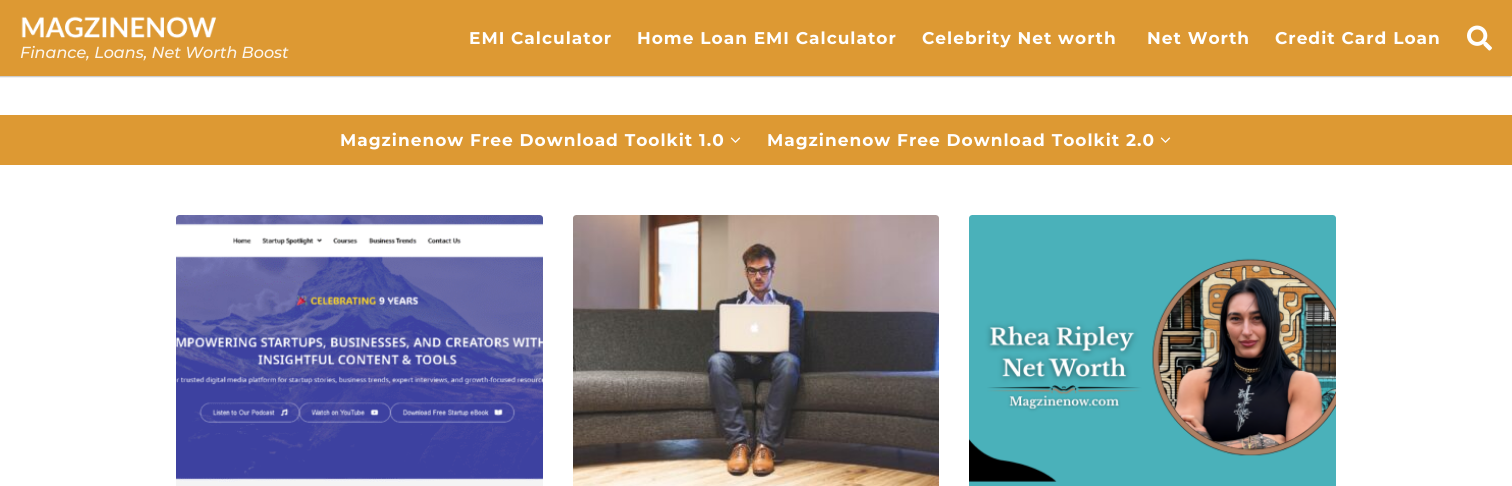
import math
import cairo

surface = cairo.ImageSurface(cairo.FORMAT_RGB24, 1512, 486)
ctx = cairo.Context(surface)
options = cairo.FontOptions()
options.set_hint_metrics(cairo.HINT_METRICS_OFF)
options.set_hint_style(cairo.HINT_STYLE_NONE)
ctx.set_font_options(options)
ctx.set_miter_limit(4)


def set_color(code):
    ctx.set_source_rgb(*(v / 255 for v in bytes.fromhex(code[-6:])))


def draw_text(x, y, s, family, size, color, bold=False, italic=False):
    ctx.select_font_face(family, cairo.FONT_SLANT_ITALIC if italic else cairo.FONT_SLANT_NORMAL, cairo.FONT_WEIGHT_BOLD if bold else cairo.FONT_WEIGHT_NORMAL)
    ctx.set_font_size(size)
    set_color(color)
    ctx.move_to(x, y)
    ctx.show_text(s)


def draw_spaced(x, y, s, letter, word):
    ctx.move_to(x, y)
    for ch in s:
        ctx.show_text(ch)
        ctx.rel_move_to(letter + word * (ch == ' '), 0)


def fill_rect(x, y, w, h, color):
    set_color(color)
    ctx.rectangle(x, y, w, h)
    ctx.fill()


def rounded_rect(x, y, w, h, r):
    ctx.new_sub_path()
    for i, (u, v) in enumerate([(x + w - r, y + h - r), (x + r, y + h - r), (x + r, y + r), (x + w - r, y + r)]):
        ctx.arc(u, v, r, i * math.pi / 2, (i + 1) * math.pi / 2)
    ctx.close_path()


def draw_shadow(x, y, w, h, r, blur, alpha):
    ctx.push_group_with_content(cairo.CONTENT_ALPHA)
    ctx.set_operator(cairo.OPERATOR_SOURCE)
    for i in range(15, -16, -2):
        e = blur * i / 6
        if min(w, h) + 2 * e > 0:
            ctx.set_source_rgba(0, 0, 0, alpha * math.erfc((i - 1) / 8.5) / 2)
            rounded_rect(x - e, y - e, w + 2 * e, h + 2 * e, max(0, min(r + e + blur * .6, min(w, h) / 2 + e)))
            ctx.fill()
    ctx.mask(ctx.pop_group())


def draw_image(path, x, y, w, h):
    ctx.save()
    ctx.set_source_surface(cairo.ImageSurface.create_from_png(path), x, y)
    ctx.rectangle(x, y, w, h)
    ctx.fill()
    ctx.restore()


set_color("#ffffff")
ctx.paint()
set_color("#2a2a2a")
draw_shadow(-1, 1, 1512, 76, 0, 0.5, 0.27)
fill_rect(0, 0, 1512, 76, "#dd9933")
ctx.select_font_face("Montserrat", cairo.FONT_SLANT_NORMAL, cairo.FONT_WEIGHT_BOLD)
ctx.set_font_size(17)
set_color("#ffffff")
draw_spaced(469, 44, "EMI Calculator", 1, 0)
draw_spaced(637, 44, "Home Loan EMI Calculator", 1, 0)
draw_spaced(922, 44, "Celebrity Net worth", 1, 0)
draw_spaced(1147, 44, "Net Worth", 1, 0)
draw_spaced(1275, 44, "Credit Card Loan", 1, 0)
draw_image("assets/img1.png", 1467, 25, 25, 26)
draw_image("assets/img2.png", 21, 16, 196, 23)
draw_text(20, 58, "Finance, Loans, Net Worth Boost", "Montserrat Medium", 16, "#fcf5eb", italic=True)
fill_rect(0, 115, 1512, 50, "#dd9933")
ctx.select_font_face("Montserrat", cairo.FONT_SLANT_NORMAL, cairo.FONT_WEIGHT_BOLD)
ctx.set_font_size(17)
set_color("#ffffff")
draw_spaced(340, 146, "Magzinenow Free Download Toolkit 1.0", 1, 0)
draw_image("assets/img3.png", 730, 137, 11, 6)
draw_spaced(767, 146, "Magzinenow Free Download Toolkit 2.0", 1, 0)
draw_image("assets/img3.png", 1160, 137, 11, 6)
draw_image("assets/img4.png", 176, 215, 367, 271)
draw_image("assets/img5.png", 573, 215, 366, 271)
draw_image("assets/img6.png", 969, 215, 367, 271)
surface.write_to_png("output.png")
